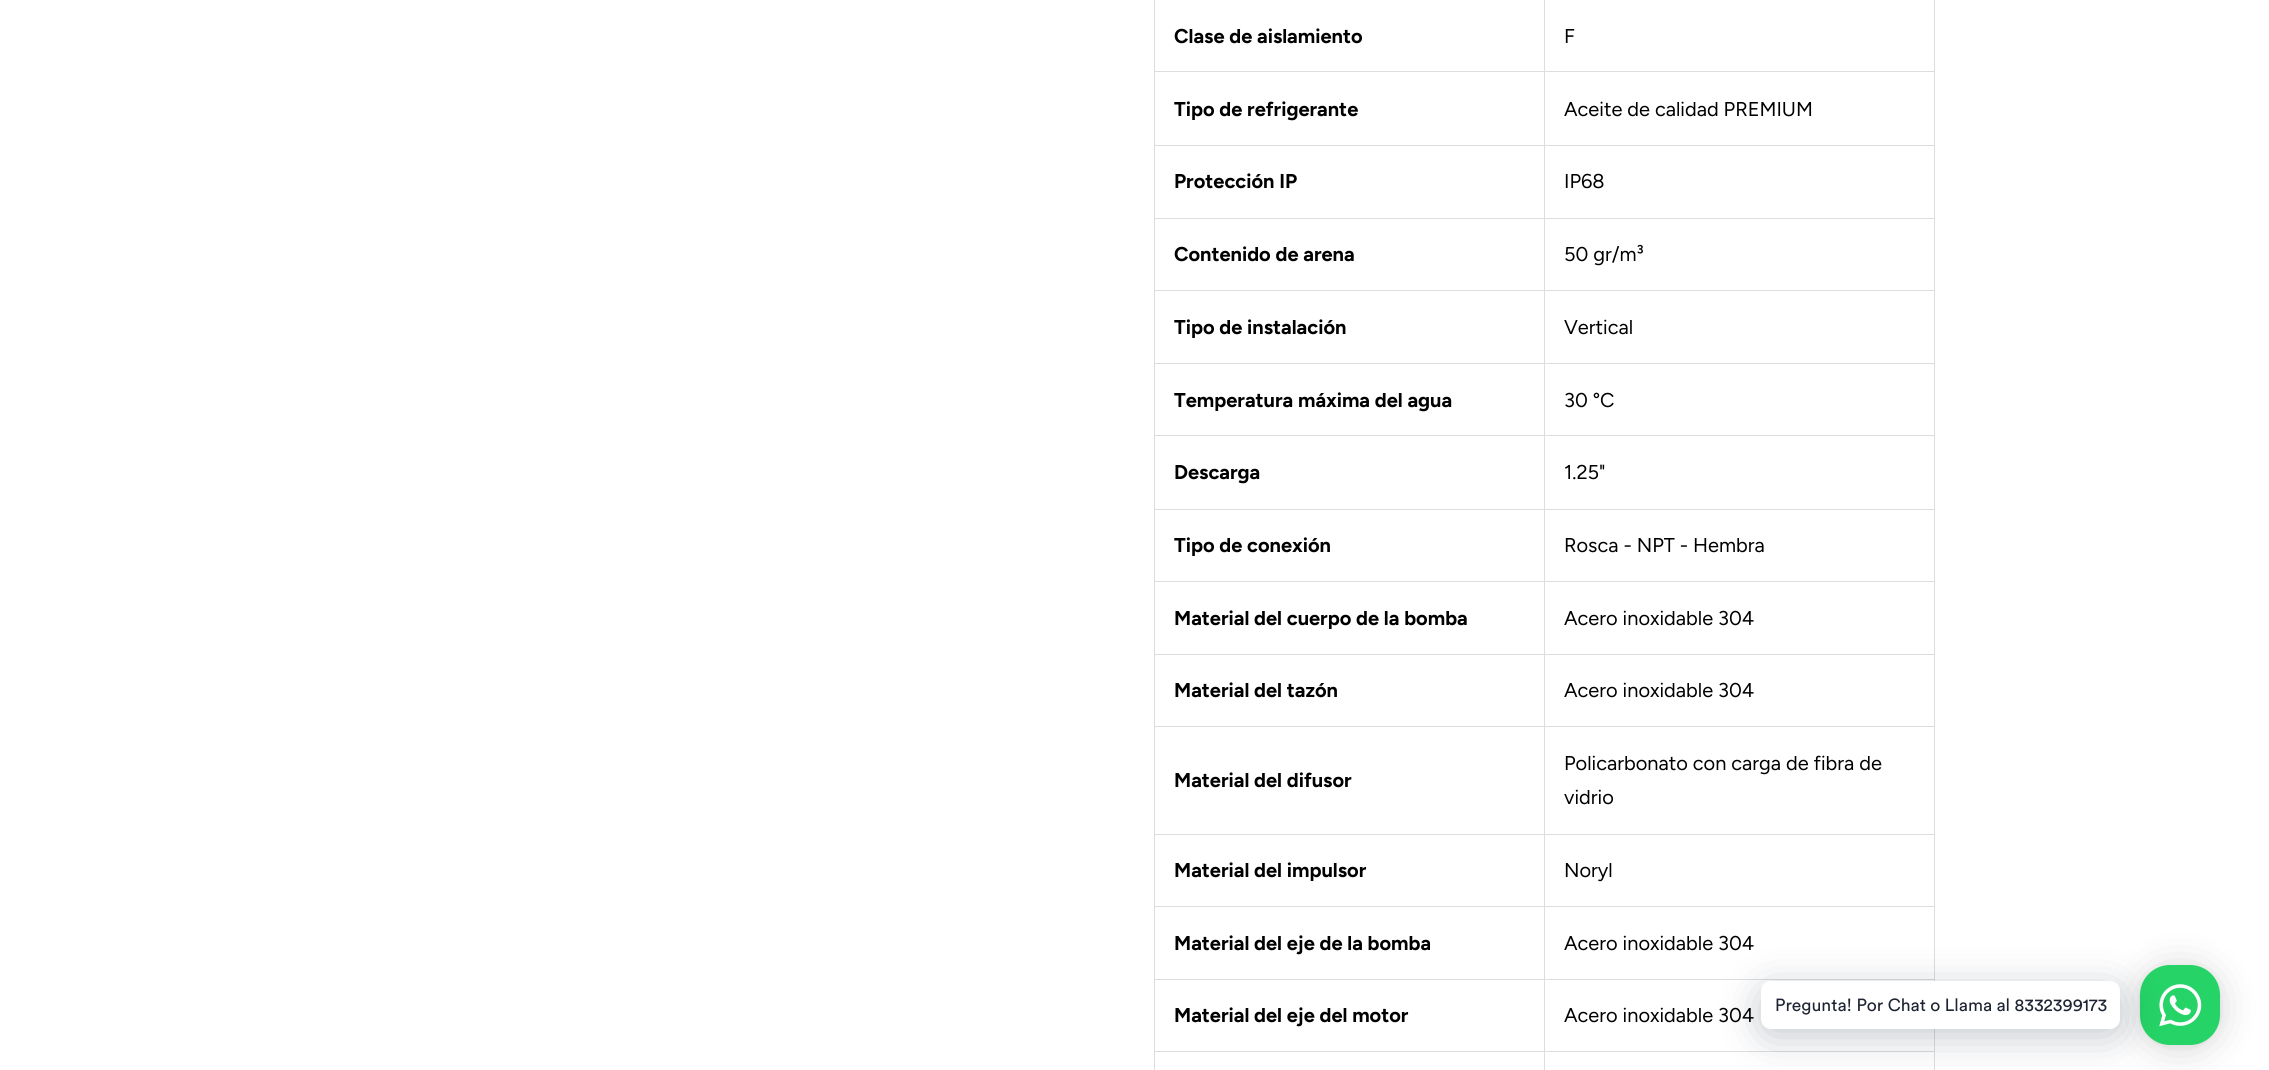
import math
import cairo

surface = cairo.ImageSurface(cairo.FORMAT_RGB24, 2269, 1070)
ctx = cairo.Context(surface)
options = cairo.FontOptions()
options.set_hint_metrics(cairo.HINT_METRICS_OFF)
options.set_hint_style(cairo.HINT_STYLE_NONE)
ctx.set_font_options(options)
ctx.set_miter_limit(4)


def set_color(code):
    ctx.set_source_rgb(*(v / 255 for v in bytes.fromhex(code[-6:])))


def draw_text(x, y, s, family, size, color, bold=False, italic=False):
    ctx.select_font_face(family, cairo.FONT_SLANT_ITALIC if italic else cairo.FONT_SLANT_NORMAL, cairo.FONT_WEIGHT_BOLD if bold else cairo.FONT_WEIGHT_NORMAL)
    ctx.set_font_size(size)
    set_color(color)
    ctx.move_to(x, y)
    ctx.show_text(s)


def fill_rect(x, y, w, h, color):
    set_color(color)
    ctx.rectangle(x, y, w, h)
    ctx.fill()


def rounded_rect(x, y, w, h, r):
    ctx.new_sub_path()
    for i, (u, v) in enumerate([(x + w - r, y + h - r), (x + r, y + h - r), (x + r, y + r), (x + w - r, y + r)]):
        ctx.arc(u, v, r, i * math.pi / 2, (i + 1) * math.pi / 2)
    ctx.close_path()


def draw_shadow(x, y, w, h, r, blur, alpha):
    ctx.push_group_with_content(cairo.CONTENT_ALPHA)
    ctx.set_operator(cairo.OPERATOR_SOURCE)
    for i in range(15, -16, -2):
        e = blur * i / 6
        if min(w, h) + 2 * e > 0:
            ctx.set_source_rgba(0, 0, 0, alpha * math.erfc((i - 1) / 8.5) / 2)
            rounded_rect(x - e, y - e, w + 2 * e, h + 2 * e, max(0, min(r + e + blur * .6, min(w, h) / 2 + e)))
            ctx.fill()
    ctx.mask(ctx.pop_group())


def draw_image(path, x, y, w, h):
    ctx.save()
    ctx.set_source_surface(cairo.ImageSurface.create_from_png(path), x, y)
    ctx.rectangle(x, y, w, h)
    ctx.fill()
    ctx.restore()


set_color("#ffffff")
ctx.paint()
draw_text(1174, 43, "Clase de aislamiento", "Figtree", 20, "#000000", bold=True)
fill_rect(1544, 71, 391, 1, "#dddddd")
fill_rect(1544, 145, 391, 1, "#dddddd")
fill_rect(1544, 218, 391, 1, "#dddddd")
fill_rect(1544, 290, 391, 1, "#dddddd")
fill_rect(1544, 363, 391, 1, "#dddddd")
fill_rect(1544, 435, 391, 1, "#dddddd")
fill_rect(1544, 509, 391, 1, "#dddddd")
fill_rect(1544, 581, 391, 1, "#dddddd")
fill_rect(1544, 654, 391, 1, "#dddddd")
fill_rect(1544, 726, 391, 1, "#dddddd")
fill_rect(1544, 834, 391, 1, "#dddddd")
fill_rect(1544, 906, 391, 1, "#dddddd")
fill_rect(1544, 979, 391, 1, "#dddddd")
fill_rect(1544, 1051, 391, 1, "#dddddd")
fill_rect(1544, 1051, 1, 19, "#dddddd")
fill_rect(1154, 1051, 391, 1, "#dddddd")
fill_rect(1544, 979, 1, 74, "#dddddd")
fill_rect(1154, 979, 391, 1, "#dddddd")
fill_rect(1544, 906, 1, 74, "#dddddd")
fill_rect(1154, 906, 391, 1, "#dddddd")
fill_rect(1544, 834, 1, 74, "#dddddd")
fill_rect(1154, 834, 391, 1, "#dddddd")
fill_rect(1544, 726, 1, 109, "#dddddd")
fill_rect(1154, 726, 391, 1, "#dddddd")
fill_rect(1544, 654, 1, 74, "#dddddd")
fill_rect(1154, 654, 391, 1, "#dddddd")
fill_rect(1544, 581, 1, 74, "#dddddd")
fill_rect(1154, 581, 391, 1, "#dddddd")
fill_rect(1544, 509, 1, 74, "#dddddd")
fill_rect(1154, 509, 391, 1, "#dddddd")
fill_rect(1544, 435, 1, 75, "#dddddd")
fill_rect(1154, 435, 391, 1, "#dddddd")
fill_rect(1544, 363, 1, 73, "#dddddd")
fill_rect(1154, 363, 391, 1, "#dddddd")
fill_rect(1544, 290, 1, 74, "#dddddd")
fill_rect(1154, 290, 391, 1, "#dddddd")
fill_rect(1544, 218, 1, 73, "#dddddd")
fill_rect(1154, 218, 391, 1, "#dddddd")
fill_rect(1544, 145, 1, 74, "#dddddd")
fill_rect(1154, 145, 391, 1, "#dddddd")
fill_rect(1544, 71, 1, 75, "#dddddd")
fill_rect(1154, 71, 391, 1, "#dddddd")
fill_rect(1544, 0, 1, 73, "#dddddd")
draw_text(1564, 43, "F", "Figtree", 20, "#000000")
fill_rect(1154, 1051, 1, 19, "#dddddd")
fill_rect(1154, 979, 1, 74, "#dddddd")
fill_rect(1154, 906, 1, 74, "#dddddd")
fill_rect(1154, 834, 1, 74, "#dddddd")
fill_rect(1154, 726, 1, 109, "#dddddd")
fill_rect(1154, 654, 1, 74, "#dddddd")
fill_rect(1154, 581, 1, 74, "#dddddd")
fill_rect(1154, 509, 1, 74, "#dddddd")
fill_rect(1154, 435, 1, 75, "#dddddd")
fill_rect(1154, 363, 1, 73, "#dddddd")
fill_rect(1154, 290, 1, 74, "#dddddd")
fill_rect(1154, 218, 1, 73, "#dddddd")
fill_rect(1154, 145, 1, 74, "#dddddd")
fill_rect(1154, 0, 1, 146, "#dddddd")
draw_text(1174, 116, "Tipo de refrigerante", "Figtree", 20, "#000000", bold=True)
fill_rect(1934, 1051, 1, 19, "#dddddd")
fill_rect(1934, 979, 1, 74, "#dddddd")
fill_rect(1934, 906, 1, 74, "#dddddd")
fill_rect(1934, 834, 1, 74, "#dddddd")
fill_rect(1934, 726, 1, 109, "#dddddd")
fill_rect(1934, 654, 1, 74, "#dddddd")
fill_rect(1934, 581, 1, 74, "#dddddd")
fill_rect(1934, 509, 1, 74, "#dddddd")
fill_rect(1934, 435, 1, 75, "#dddddd")
fill_rect(1934, 363, 1, 73, "#dddddd")
fill_rect(1934, 290, 1, 74, "#dddddd")
fill_rect(1934, 218, 1, 73, "#dddddd")
fill_rect(1934, 145, 1, 74, "#dddddd")
fill_rect(1934, 0, 1, 146, "#dddddd")
draw_text(1564, 116, "Aceite de calidad PREMIUM", "Figtree", 20, "#000000")
draw_text(1174, 188, "Protección IP", "Figtree", 20, "#000000", bold=True)
draw_text(1564, 188, "IP68", "Figtree", 20, "#000000")
draw_text(1174, 261, "Contenido de arena", "Figtree", 20, "#000000", bold=True)
draw_text(1564, 261, "50 gr/m³", "Figtree", 20, "#000000")
draw_text(1174, 334, "Tipo de instalación", "Figtree", 20, "#000000", bold=True)
draw_text(1564, 334, "Vertical", "Figtree", 20, "#000000")
draw_text(1174, 407, "Temperatura máxima del agua", "Figtree", 20, "#000000", bold=True)
draw_text(1564, 407, "30 °C", "Figtree", 20, "#000000")
draw_text(1174, 479, "Descarga", "Figtree", 20, "#000000", bold=True)
draw_text(1564, 479, "1.25\"", "Figtree", 20, "#000000")
draw_text(1174, 552, "Tipo de conexión", "Figtree", 20, "#000000", bold=True)
draw_text(1564, 552, "Rosca - NPT - Hembra", "Figtree", 20, "#000000")
draw_text(1174, 625, "Material del cuerpo de la bomba", "Figtree", 20, "#000000", bold=True)
draw_text(1564, 625, "Acero inoxidable 304", "Figtree", 20, "#000000")
draw_text(1174, 697, "Material del tazón", "Figtree", 20, "#000000", bold=True)
draw_text(1564, 697, "Acero inoxidable 304", "Figtree", 20, "#000000")
draw_text(1174, 787, "Material del difusor", "Figtree", 20, "#000000", bold=True)
draw_text(1564, 770, "Policarbonato con carga de fibra de", "Figtree", 20, "#000000")
draw_text(1564, 804, "vidrio", "Figtree", 20, "#000000")
draw_text(1174, 877, "Material del impulsor", "Figtree", 20, "#000000", bold=True)
draw_text(1564, 877, "Noryl", "Figtree", 20, "#000000")
draw_text(1174, 950, "Material del eje de la bomba", "Figtree", 20, "#000000", bold=True)
draw_text(1564, 950, "Acero inoxidable 304", "Figtree", 20, "#000000")
draw_text(1174, 1022, "Material del eje del motor", "Figtree", 20, "#000000", bold=True)
draw_text(1564, 1022, "Acero inoxidable 304", "Figtree", 20, "#000000")
set_color("#000000")
draw_shadow(2140, 968, 80, 80, 30, 20, 0.16)
draw_shadow(2140, 966, 80, 80, 30, 4, 0.06)
set_color("#25d366")
rounded_rect(2140, 965, 80, 80, 30)
ctx.fill()
set_color("#00122e")
draw_shadow(1761, 989, 359, 47, 10, 20, 0.24)
set_color("#ffffff")
rounded_rect(1761, 981, 359, 48, 10)
ctx.fill()
draw_text(1775, 1011, "Pregunta! Por Chat o Llama al 8332399173", "Circular", 17.5, "#1e2433")
draw_image("assets/img1.png", 2159, 984, 43, 43)
surface.write_to_png("output.png")
